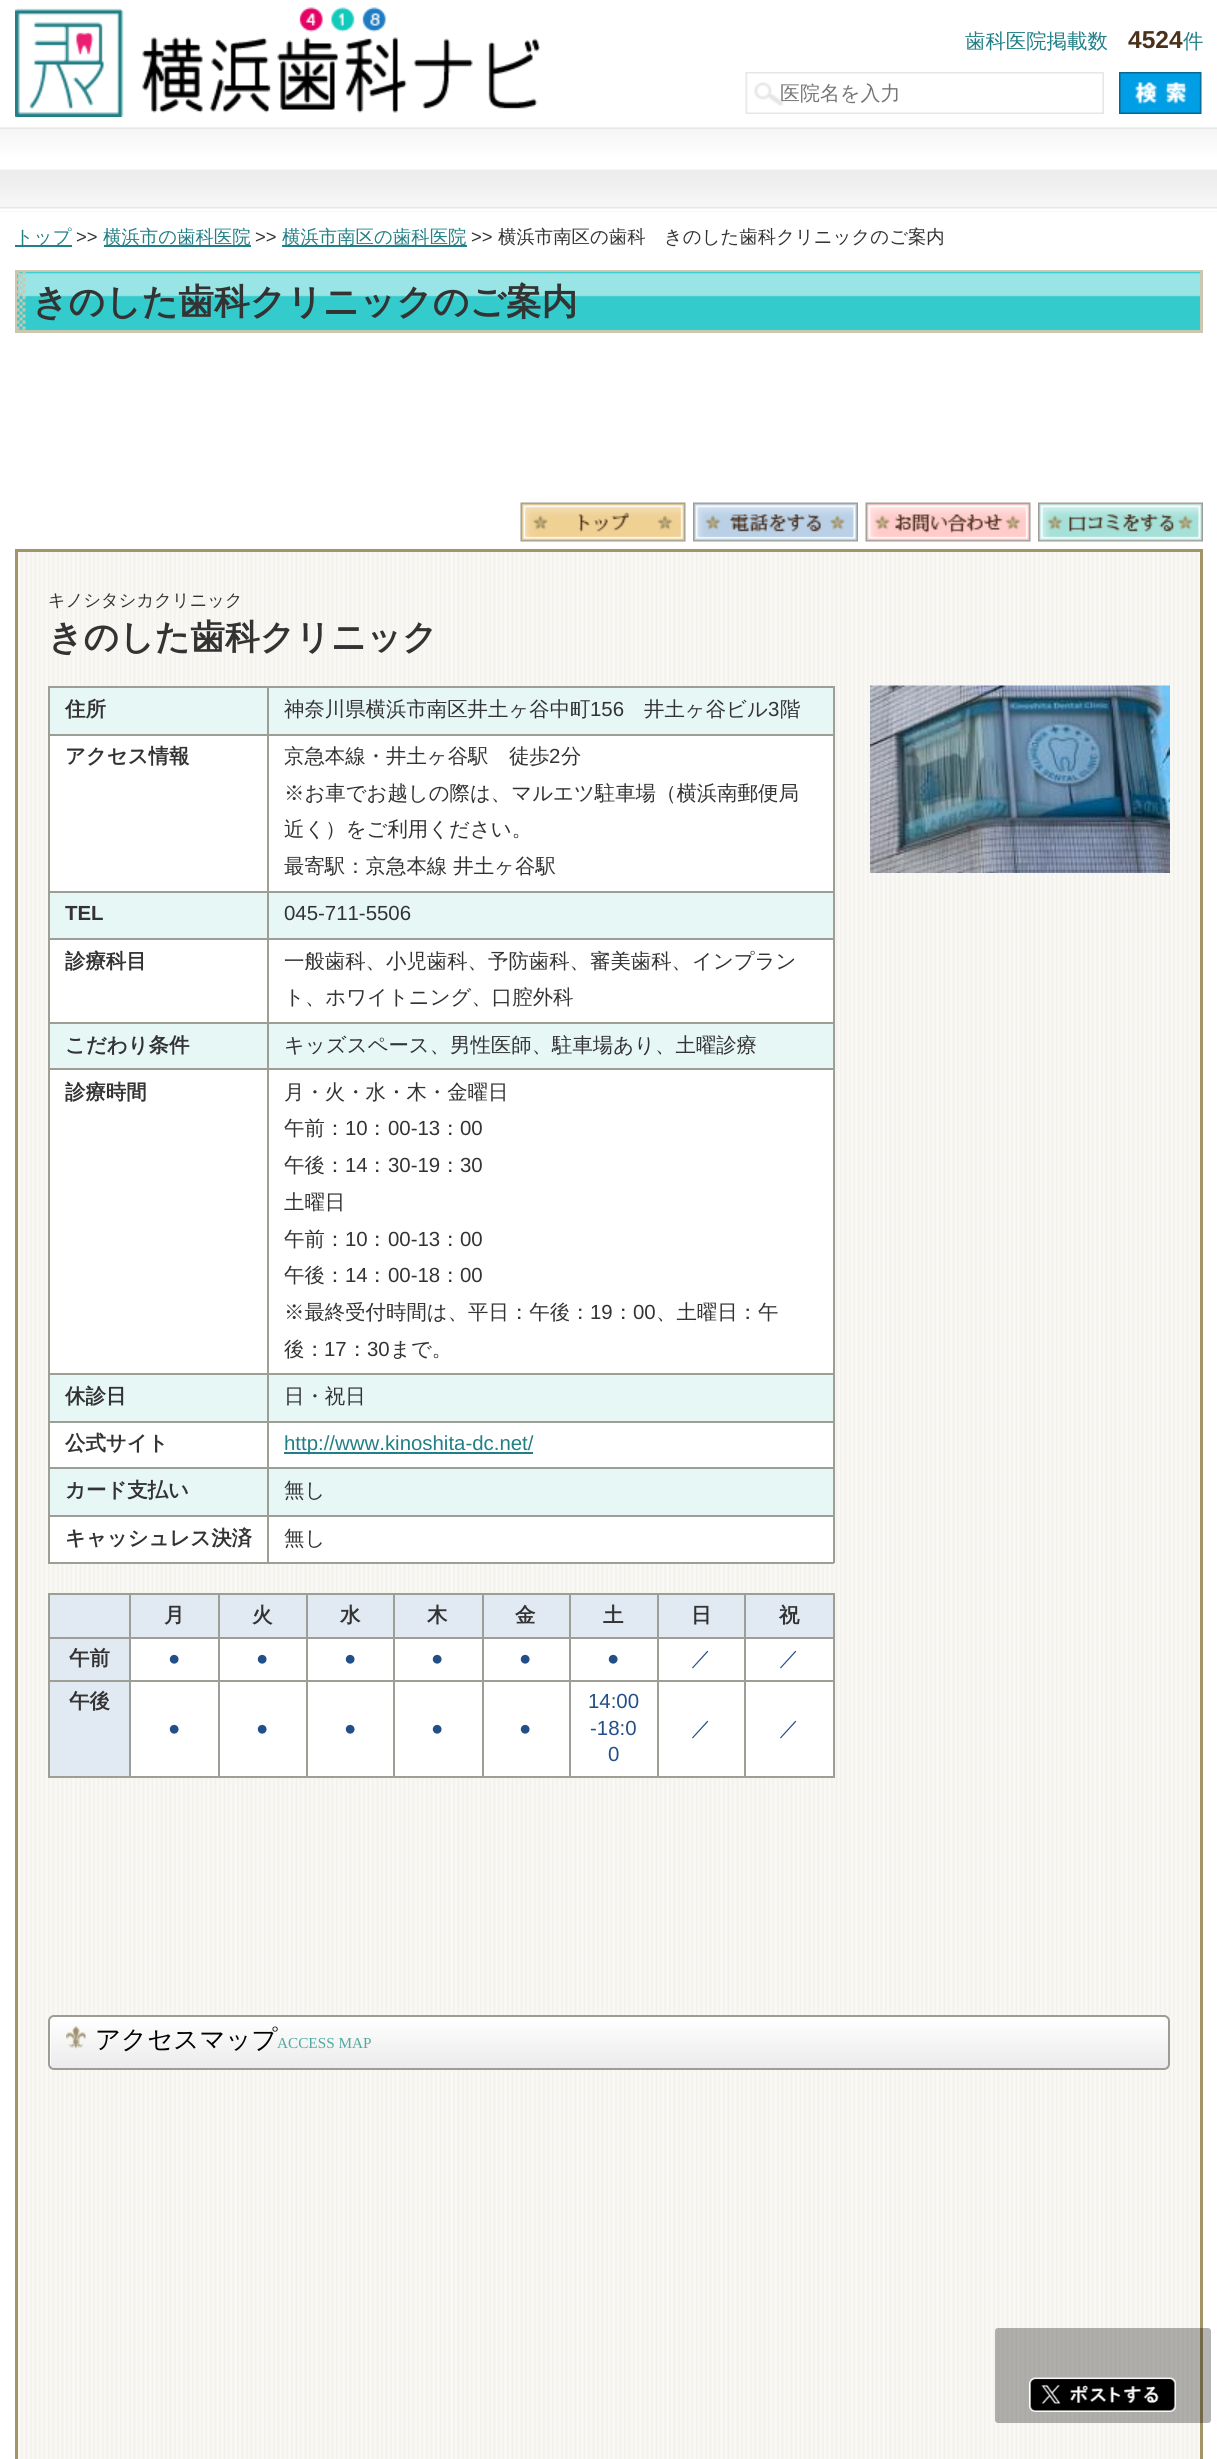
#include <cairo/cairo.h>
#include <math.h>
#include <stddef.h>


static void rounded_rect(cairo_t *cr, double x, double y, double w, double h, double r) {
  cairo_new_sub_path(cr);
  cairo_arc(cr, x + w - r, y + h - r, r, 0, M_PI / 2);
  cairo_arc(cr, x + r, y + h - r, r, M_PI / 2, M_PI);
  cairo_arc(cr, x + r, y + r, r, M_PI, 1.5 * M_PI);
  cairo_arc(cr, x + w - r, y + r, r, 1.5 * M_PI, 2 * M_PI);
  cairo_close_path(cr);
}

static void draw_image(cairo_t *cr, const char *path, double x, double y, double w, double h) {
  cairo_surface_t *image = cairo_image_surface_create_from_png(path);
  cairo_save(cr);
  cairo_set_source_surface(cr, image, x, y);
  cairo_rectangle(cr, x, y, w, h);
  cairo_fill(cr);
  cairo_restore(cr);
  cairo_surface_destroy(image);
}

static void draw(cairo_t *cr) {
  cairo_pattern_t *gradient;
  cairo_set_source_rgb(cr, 1, 1, 1);
  cairo_paint(cr);
  draw_image(cr, "images/1.png", 15, 7, 525, 110);
  draw_image(cr, "images/2.png", 745, 72, 359, 42);
  draw_image(cr, "images/3.png", 1119, 72, 83, 42);
  draw_image(cr, "images/4.png", 0, 127, 1217, 85);
  cairo_set_source_rgb(cr, 34 / 255.0, 127 / 255.0, 133 / 255.0);
  cairo_rectangle(cr, 15, 245, 57, 2);
  cairo_fill(cr);
  cairo_rectangle(cr, 104, 245, 147, 2);
  cairo_fill(cr);
  cairo_rectangle(cr, 282, 245, 185, 2);
  cairo_fill(cr);
  draw_image(cr, "images/5.png", 17, 272, 1183, 58);
  cairo_set_source_rgb(cr, 204 / 255.0, 199 / 255.0, 177 / 255.0);
  cairo_rectangle(cr, 15, 270, 1188, 2);
  cairo_fill(cr);
  cairo_rectangle(cr, 1200, 270, 3, 63);
  cairo_fill(cr);
  cairo_rectangle(cr, 15, 330, 1188, 3);
  cairo_fill(cr);
  cairo_rectangle(cr, 15, 270, 2, 63);
  cairo_fill(cr);
  draw_image(cr, "images/6.png", 520, 502, 166, 40);
  draw_image(cr, "images/7.png", 693, 502, 165, 40);
  draw_image(cr, "images/8.png", 865, 502, 166, 40);
  draw_image(cr, "images/9.png", 1038, 502, 165, 40);
  draw_image(cr, "images/10.png", 18, 552, 1182, 1907);
  cairo_rectangle(cr, 16.5, 550.5, 1185, 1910);
  cairo_set_source_rgb(cr, 164 / 255.0, 149 / 255.0, 104 / 255.0);
  cairo_set_line_width(cr, 3);
  cairo_stroke(cr);
  cairo_set_source_rgb(cr, 231 / 255.0, 247 / 255.0, 246 / 255.0);
  cairo_rectangle(cr, 50, 688, 217, 46);
  cairo_fill(cr);
  cairo_set_source_rgb(cr, 157 / 255.0, 158 / 255.0, 150 / 255.0);
  cairo_rectangle(cr, 267, 686, 567, 2);
  cairo_fill(cr);
  cairo_rectangle(cr, 267, 734, 567, 2);
  cairo_fill(cr);
  cairo_rectangle(cr, 267, 891, 567, 2);
  cairo_fill(cr);
  cairo_rectangle(cr, 267, 938, 567, 2);
  cairo_fill(cr);
  cairo_rectangle(cr, 267, 1022, 567, 2);
  cairo_fill(cr);
  cairo_rectangle(cr, 267, 1068, 567, 2);
  cairo_fill(cr);
  cairo_rectangle(cr, 267, 1373, 567, 2);
  cairo_fill(cr);
  cairo_rectangle(cr, 267, 1421, 567, 2);
  cairo_fill(cr);
  cairo_rectangle(cr, 267, 1467, 567, 2);
  cairo_fill(cr);
  cairo_rectangle(cr, 267, 1515, 567, 2);
  cairo_fill(cr);
  cairo_rectangle(cr, 833, 1515, 2, 48);
  cairo_fill(cr);
  cairo_rectangle(cr, 267, 1562, 567, 2);
  cairo_fill(cr);
  cairo_rectangle(cr, 267, 1515, 2, 48);
  cairo_fill(cr);
  cairo_rectangle(cr, 48, 1515, 221, 2);
  cairo_fill(cr);
  cairo_rectangle(cr, 267, 1467, 2, 50);
  cairo_fill(cr);
  cairo_rectangle(cr, 48, 1467, 221, 2);
  cairo_fill(cr);
  cairo_rectangle(cr, 267, 1421, 2, 48);
  cairo_fill(cr);
  cairo_rectangle(cr, 48, 1421, 221, 2);
  cairo_fill(cr);
  cairo_rectangle(cr, 267, 1373, 2, 49);
  cairo_fill(cr);
  cairo_rectangle(cr, 48, 1373, 221, 2);
  cairo_fill(cr);
  cairo_rectangle(cr, 267, 1068, 2, 306);
  cairo_fill(cr);
  cairo_rectangle(cr, 48, 1068, 221, 2);
  cairo_fill(cr);
  cairo_rectangle(cr, 267, 1022, 2, 48);
  cairo_fill(cr);
  cairo_rectangle(cr, 48, 1022, 221, 2);
  cairo_fill(cr);
  cairo_rectangle(cr, 267, 938, 2, 85);
  cairo_fill(cr);
  cairo_rectangle(cr, 48, 938, 221, 2);
  cairo_fill(cr);
  cairo_rectangle(cr, 267, 891, 2, 48);
  cairo_fill(cr);
  cairo_rectangle(cr, 48, 891, 221, 2);
  cairo_fill(cr);
  cairo_rectangle(cr, 267, 734, 2, 159);
  cairo_fill(cr);
  cairo_rectangle(cr, 48, 734, 221, 2);
  cairo_fill(cr);
  cairo_rectangle(cr, 267, 686, 2, 49);
  cairo_fill(cr);
  cairo_rectangle(cr, 48, 686, 221, 2);
  cairo_fill(cr);
  cairo_rectangle(cr, 48, 1562, 221, 2);
  cairo_fill(cr);
  cairo_rectangle(cr, 48, 1515, 2, 48);
  cairo_fill(cr);
  cairo_rectangle(cr, 48, 1467, 2, 50);
  cairo_fill(cr);
  cairo_rectangle(cr, 48, 1421, 2, 48);
  cairo_fill(cr);
  cairo_rectangle(cr, 48, 1373, 2, 49);
  cairo_fill(cr);
  cairo_rectangle(cr, 48, 1068, 2, 306);
  cairo_fill(cr);
  cairo_rectangle(cr, 48, 1022, 2, 48);
  cairo_fill(cr);
  cairo_rectangle(cr, 48, 938, 2, 85);
  cairo_fill(cr);
  cairo_rectangle(cr, 48, 891, 2, 48);
  cairo_fill(cr);
  cairo_rectangle(cr, 48, 734, 2, 159);
  cairo_fill(cr);
  cairo_rectangle(cr, 48, 686, 2, 49);
  cairo_fill(cr);
  cairo_set_source_rgb(cr, 231 / 255.0, 247 / 255.0, 246 / 255.0);
  cairo_rectangle(cr, 269, 688, 564, 46);
  cairo_fill(cr);
  cairo_set_source_rgb(cr, 157 / 255.0, 158 / 255.0, 150 / 255.0);
  cairo_rectangle(cr, 833, 1467, 2, 50);
  cairo_fill(cr);
  cairo_rectangle(cr, 833, 1421, 2, 48);
  cairo_fill(cr);
  cairo_rectangle(cr, 833, 1373, 2, 49);
  cairo_fill(cr);
  cairo_rectangle(cr, 833, 1068, 2, 306);
  cairo_fill(cr);
  cairo_rectangle(cr, 833, 1022, 2, 48);
  cairo_fill(cr);
  cairo_rectangle(cr, 833, 938, 2, 85);
  cairo_fill(cr);
  cairo_rectangle(cr, 833, 891, 2, 48);
  cairo_fill(cr);
  cairo_rectangle(cr, 833, 734, 2, 159);
  cairo_fill(cr);
  cairo_rectangle(cr, 833, 686, 2, 49);
  cairo_fill(cr);
  cairo_set_source_rgb(cr, 1, 1, 1);
  cairo_rectangle(cr, 50, 736, 217, 155);
  cairo_fill(cr);
  cairo_rectangle(cr, 269, 736, 564, 155);
  cairo_fill(cr);
  cairo_set_source_rgb(cr, 231 / 255.0, 247 / 255.0, 246 / 255.0);
  cairo_rectangle(cr, 50, 893, 217, 45);
  cairo_fill(cr);
  cairo_rectangle(cr, 269, 893, 564, 45);
  cairo_fill(cr);
  cairo_set_source_rgb(cr, 1, 1, 1);
  cairo_rectangle(cr, 50, 940, 217, 82);
  cairo_fill(cr);
  cairo_rectangle(cr, 269, 940, 564, 82);
  cairo_fill(cr);
  cairo_set_source_rgb(cr, 231 / 255.0, 247 / 255.0, 246 / 255.0);
  cairo_rectangle(cr, 50, 1024, 217, 44);
  cairo_fill(cr);
  cairo_rectangle(cr, 269, 1024, 564, 44);
  cairo_fill(cr);
  cairo_set_source_rgb(cr, 1, 1, 1);
  cairo_rectangle(cr, 50, 1070, 217, 303);
  cairo_fill(cr);
  cairo_rectangle(cr, 269, 1070, 564, 303);
  cairo_fill(cr);
  cairo_set_source_rgb(cr, 231 / 255.0, 247 / 255.0, 246 / 255.0);
  cairo_rectangle(cr, 50, 1375, 217, 46);
  cairo_fill(cr);
  cairo_rectangle(cr, 269, 1375, 564, 46);
  cairo_fill(cr);
  cairo_set_source_rgb(cr, 1, 1, 1);
  cairo_rectangle(cr, 50, 1423, 217, 44);
  cairo_fill(cr);
  cairo_rectangle(cr, 269, 1423, 564, 44);
  cairo_fill(cr);
  cairo_set_source_rgb(cr, 34 / 255.0, 127 / 255.0, 133 / 255.0);
  cairo_rectangle(cr, 284, 1452, 249, 2);
  cairo_fill(cr);
  cairo_set_source_rgb(cr, 231 / 255.0, 247 / 255.0, 246 / 255.0);
  cairo_rectangle(cr, 50, 1469, 217, 46);
  cairo_fill(cr);
  cairo_rectangle(cr, 269, 1469, 564, 46);
  cairo_fill(cr);
  cairo_set_source_rgb(cr, 1, 1, 1);
  cairo_rectangle(cr, 50, 1517, 217, 45);
  cairo_fill(cr);
  cairo_rectangle(cr, 269, 1517, 564, 45);
  cairo_fill(cr);
  draw_image(cr, "images/11.png", 870, 685, 300, 188);
  cairo_set_source_rgb(cr, 225 / 255.0, 234 / 255.0, 243 / 255.0);
  cairo_rectangle(cr, 50, 1595, 79, 42);
  cairo_fill(cr);
  cairo_set_source_rgb(cr, 157 / 255.0, 158 / 255.0, 150 / 255.0);
  cairo_rectangle(cr, 744, 1593, 90, 2);
  cairo_fill(cr);
  cairo_rectangle(cr, 744, 1637, 90, 2);
  cairo_fill(cr);
  cairo_rectangle(cr, 744, 1680, 90, 2);
  cairo_fill(cr);
  cairo_rectangle(cr, 833, 1680, 2, 98);
  cairo_fill(cr);
  cairo_rectangle(cr, 744, 1776, 90, 2);
  cairo_fill(cr);
  cairo_rectangle(cr, 744, 1680, 2, 98);
  cairo_fill(cr);
  cairo_rectangle(cr, 657, 1680, 89, 2);
  cairo_fill(cr);
  cairo_rectangle(cr, 744, 1637, 2, 45);
  cairo_fill(cr);
  cairo_rectangle(cr, 657, 1637, 89, 2);
  cairo_fill(cr);
  cairo_rectangle(cr, 744, 1593, 2, 45);
  cairo_fill(cr);
  cairo_rectangle(cr, 657, 1593, 89, 2);
  cairo_fill(cr);
  cairo_rectangle(cr, 657, 1776, 89, 2);
  cairo_fill(cr);
  cairo_rectangle(cr, 657, 1680, 2, 98);
  cairo_fill(cr);
  cairo_rectangle(cr, 569, 1680, 90, 2);
  cairo_fill(cr);
  cairo_rectangle(cr, 657, 1637, 2, 45);
  cairo_fill(cr);
  cairo_rectangle(cr, 569, 1637, 90, 2);
  cairo_fill(cr);
  cairo_rectangle(cr, 657, 1593, 2, 45);
  cairo_fill(cr);
  cairo_rectangle(cr, 569, 1593, 90, 2);
  cairo_fill(cr);
  cairo_rectangle(cr, 569, 1776, 90, 2);
  cairo_fill(cr);
  cairo_rectangle(cr, 569, 1680, 2, 98);
  cairo_fill(cr);
  cairo_rectangle(cr, 482, 1680, 88, 2);
  cairo_fill(cr);
  cairo_rectangle(cr, 569, 1637, 2, 45);
  cairo_fill(cr);
  cairo_rectangle(cr, 482, 1637, 88, 2);
  cairo_fill(cr);
  cairo_rectangle(cr, 569, 1593, 2, 45);
  cairo_fill(cr);
  cairo_rectangle(cr, 482, 1593, 88, 2);
  cairo_fill(cr);
  cairo_rectangle(cr, 482, 1776, 88, 2);
  cairo_fill(cr);
  cairo_rectangle(cr, 482, 1680, 2, 98);
  cairo_fill(cr);
  cairo_rectangle(cr, 393, 1680, 90, 2);
  cairo_fill(cr);
  cairo_rectangle(cr, 482, 1637, 2, 45);
  cairo_fill(cr);
  cairo_rectangle(cr, 393, 1637, 90, 2);
  cairo_fill(cr);
  cairo_rectangle(cr, 482, 1593, 2, 45);
  cairo_fill(cr);
  cairo_rectangle(cr, 393, 1593, 90, 2);
  cairo_fill(cr);
  cairo_rectangle(cr, 393, 1776, 90, 2);
  cairo_fill(cr);
  cairo_rectangle(cr, 393, 1680, 2, 98);
  cairo_fill(cr);
  cairo_rectangle(cr, 306, 1680, 89, 2);
  cairo_fill(cr);
  cairo_rectangle(cr, 393, 1637, 2, 45);
  cairo_fill(cr);
  cairo_rectangle(cr, 306, 1637, 89, 2);
  cairo_fill(cr);
  cairo_rectangle(cr, 393, 1593, 2, 45);
  cairo_fill(cr);
  cairo_rectangle(cr, 306, 1593, 89, 2);
  cairo_fill(cr);
  cairo_rectangle(cr, 306, 1776, 89, 2);
  cairo_fill(cr);
  cairo_rectangle(cr, 306, 1680, 2, 98);
  cairo_fill(cr);
  cairo_rectangle(cr, 218, 1680, 90, 2);
  cairo_fill(cr);
  cairo_rectangle(cr, 306, 1637, 2, 45);
  cairo_fill(cr);
  cairo_rectangle(cr, 218, 1637, 90, 2);
  cairo_fill(cr);
  cairo_rectangle(cr, 306, 1593, 2, 45);
  cairo_fill(cr);
  cairo_rectangle(cr, 218, 1593, 90, 2);
  cairo_fill(cr);
  cairo_rectangle(cr, 218, 1776, 90, 2);
  cairo_fill(cr);
  cairo_rectangle(cr, 218, 1680, 2, 98);
  cairo_fill(cr);
  cairo_rectangle(cr, 129, 1680, 90, 2);
  cairo_fill(cr);
  cairo_rectangle(cr, 218, 1637, 2, 45);
  cairo_fill(cr);
  cairo_rectangle(cr, 129, 1637, 90, 2);
  cairo_fill(cr);
  cairo_rectangle(cr, 218, 1593, 2, 45);
  cairo_fill(cr);
  cairo_rectangle(cr, 129, 1593, 90, 2);
  cairo_fill(cr);
  cairo_rectangle(cr, 129, 1776, 90, 2);
  cairo_fill(cr);
  cairo_rectangle(cr, 129, 1680, 2, 98);
  cairo_fill(cr);
  cairo_rectangle(cr, 48, 1680, 83, 2);
  cairo_fill(cr);
  cairo_rectangle(cr, 129, 1637, 2, 45);
  cairo_fill(cr);
  cairo_rectangle(cr, 48, 1637, 83, 2);
  cairo_fill(cr);
  cairo_rectangle(cr, 129, 1593, 2, 45);
  cairo_fill(cr);
  cairo_rectangle(cr, 48, 1593, 83, 2);
  cairo_fill(cr);
  cairo_rectangle(cr, 48, 1776, 83, 2);
  cairo_fill(cr);
  cairo_rectangle(cr, 48, 1680, 2, 98);
  cairo_fill(cr);
  cairo_rectangle(cr, 48, 1637, 2, 45);
  cairo_fill(cr);
  cairo_rectangle(cr, 48, 1593, 2, 45);
  cairo_fill(cr);
  cairo_set_source_rgb(cr, 225 / 255.0, 234 / 255.0, 243 / 255.0);
  cairo_rectangle(cr, 131, 1595, 87, 42);
  cairo_fill(cr);
  cairo_rectangle(cr, 220, 1595, 86, 42);
  cairo_fill(cr);
  cairo_rectangle(cr, 308, 1595, 85, 42);
  cairo_fill(cr);
  cairo_rectangle(cr, 395, 1595, 87, 42);
  cairo_fill(cr);
  cairo_rectangle(cr, 484, 1595, 85, 42);
  cairo_fill(cr);
  cairo_rectangle(cr, 571, 1595, 86, 42);
  cairo_fill(cr);
  cairo_rectangle(cr, 659, 1595, 85, 42);
  cairo_fill(cr);
  cairo_rectangle(cr, 746, 1595, 87, 42);
  cairo_fill(cr);
  cairo_set_source_rgb(cr, 157 / 255.0, 158 / 255.0, 150 / 255.0);
  cairo_rectangle(cr, 833, 1637, 2, 45);
  cairo_fill(cr);
  cairo_rectangle(cr, 833, 1593, 2, 45);
  cairo_fill(cr);
  cairo_set_source_rgb(cr, 225 / 255.0, 234 / 255.0, 243 / 255.0);
  cairo_rectangle(cr, 50, 1639, 79, 41);
  cairo_fill(cr);
  cairo_set_source_rgb(cr, 1, 1, 1);
  cairo_rectangle(cr, 131, 1639, 87, 41);
  cairo_fill(cr);
  cairo_rectangle(cr, 220, 1639, 86, 41);
  cairo_fill(cr);
  cairo_rectangle(cr, 308, 1639, 85, 41);
  cairo_fill(cr);
  cairo_rectangle(cr, 395, 1639, 87, 41);
  cairo_fill(cr);
  cairo_rectangle(cr, 484, 1639, 85, 41);
  cairo_fill(cr);
  cairo_rectangle(cr, 571, 1639, 86, 41);
  cairo_fill(cr);
  cairo_rectangle(cr, 659, 1639, 85, 41);
  cairo_fill(cr);
  cairo_rectangle(cr, 746, 1639, 87, 41);
  cairo_fill(cr);
  cairo_set_source_rgb(cr, 225 / 255.0, 234 / 255.0, 243 / 255.0);
  cairo_rectangle(cr, 50, 1682, 79, 94);
  cairo_fill(cr);
  cairo_set_source_rgb(cr, 1, 1, 1);
  cairo_rectangle(cr, 131, 1682, 87, 94);
  cairo_fill(cr);
  cairo_rectangle(cr, 220, 1682, 86, 94);
  cairo_fill(cr);
  cairo_rectangle(cr, 308, 1682, 85, 94);
  cairo_fill(cr);
  cairo_rectangle(cr, 395, 1682, 87, 94);
  cairo_fill(cr);
  cairo_rectangle(cr, 484, 1682, 85, 94);
  cairo_fill(cr);
  cairo_rectangle(cr, 571, 1682, 86, 94);
  cairo_fill(cr);
  cairo_rectangle(cr, 659, 1682, 85, 94);
  cairo_fill(cr);
  cairo_rectangle(cr, 746, 1682, 87, 94);
  cairo_fill(cr);
  cairo_save(cr);
  rounded_rect(cr, 48, 2015, 1122, 55, 6);
  cairo_clip(cr);
  gradient = cairo_pattern_create_linear(50, 2016, 50, 2069);
  cairo_pattern_add_color_stop_rgba(gradient, 0.05, 1, 1, 1, 1);
  cairo_pattern_add_color_stop_rgba(gradient, 1, 236 / 255.0, 234 / 255.0, 236 / 255.0, 1);
  cairo_set_source(cr, gradient);
  cairo_pattern_destroy(gradient);
  cairo_rectangle(cr, 48, 2016, 1122, 53);
  cairo_fill(cr);
  cairo_restore(cr);
  cairo_new_path(cr);
  cairo_move_to(cr, 56, 2018);
  cairo_line_to(cr, 1166, 2018);
  cairo_line_to(cr, 1169, 2019);
  cairo_curve_to(cr, 1168, 2017, 1166, 2016, 1164, 2016);
  cairo_line_to(cr, 55, 2016);
  cairo_curve_to(cr, 52, 2016, 50, 2018, 50, 2021);
  cairo_line_to(cr, 50, 2064);
  cairo_curve_to(cr, 50, 2065, 50, 2066, 51, 2067);
  cairo_line_to(cr, 51, 2029);
  cairo_curve_to(cr, 51, 2025, 50, 2018, 56, 2018);
  cairo_close_path(cr);
  cairo_fill(cr);
  rounded_rect(cr, 49, 2016, 1120, 53, 5);
  cairo_set_source_rgb(cr, 156 / 255.0, 158 / 255.0, 149 / 255.0);
  cairo_set_line_width(cr, 2);
  cairo_stroke(cr);
  draw_image(cr, "images/12.png", 66, 2026, 20, 23);
  cairo_set_source_rgba(cr, 0, 0, 0, 0.3);
  rounded_rect(cr, 995, 2328, 216, 95, 3);
  cairo_fill(cr);
  draw_image(cr, "images/13.png", 1029, 2377, 147, 35);
  cairo_select_font_face(cr, "WenQuanYi Zen Hei Medium", CAIRO_FONT_SLANT_NORMAL, CAIRO_FONT_WEIGHT_NORMAL);
  cairo_set_font_size(cr, 20.4);
  cairo_set_source_rgb(cr, 34 / 255.0, 127 / 255.0, 133 / 255.0);
  cairo_move_to(cr, 965, 48);
  cairo_show_text(cr, "歯科医院掲載数");
  cairo_select_font_face(cr, "Liberation Sans", CAIRO_FONT_SLANT_NORMAL, CAIRO_FONT_WEIGHT_BOLD);
  cairo_set_font_size(cr, 24.5);
  cairo_set_source_rgb(cr, 73 / 255.0, 49 / 255.0, 28 / 255.0);
  cairo_move_to(cr, 1128, 48);
  cairo_show_text(cr, "4524");
  cairo_select_font_face(cr, "WenQuanYi Zen Hei Medium", CAIRO_FONT_SLANT_NORMAL, CAIRO_FONT_WEIGHT_NORMAL);
  cairo_set_font_size(cr, 20.4);
  cairo_set_source_rgb(cr, 34 / 255.0, 127 / 255.0, 133 / 255.0);
  cairo_move_to(cr, 1183, 48);
  cairo_show_text(cr, "件");
  cairo_set_font_size(cr, 20);
  cairo_set_source_rgb(cr, 117 / 255.0, 117 / 255.0, 117 / 255.0);
  cairo_move_to(cr, 780, 100);
  cairo_show_text(cr, "医院名を入力");
  cairo_set_font_size(cr, 18.4);
  cairo_set_source_rgb(cr, 34 / 255.0, 127 / 255.0, 133 / 255.0);
  cairo_move_to(cr, 15, 243);
  cairo_show_text(cr, "トップ");
  cairo_select_font_face(cr, "Liberation Sans", CAIRO_FONT_SLANT_NORMAL, CAIRO_FONT_WEIGHT_NORMAL);
  cairo_set_source_rgb(cr, 51 / 255.0, 51 / 255.0, 51 / 255.0);
  cairo_move_to(cr, 76, 243);
  cairo_show_text(cr, ">>");
  cairo_select_font_face(cr, "WenQuanYi Zen Hei Medium", CAIRO_FONT_SLANT_NORMAL, CAIRO_FONT_WEIGHT_NORMAL);
  cairo_set_source_rgb(cr, 34 / 255.0, 127 / 255.0, 133 / 255.0);
  cairo_move_to(cr, 103, 243);
  cairo_show_text(cr, "横浜市の歯科医院");
  cairo_select_font_face(cr, "Liberation Sans", CAIRO_FONT_SLANT_NORMAL, CAIRO_FONT_WEIGHT_NORMAL);
  cairo_set_source_rgb(cr, 51 / 255.0, 51 / 255.0, 51 / 255.0);
  cairo_move_to(cr, 255, 243);
  cairo_show_text(cr, ">>");
  cairo_select_font_face(cr, "WenQuanYi Zen Hei Medium", CAIRO_FONT_SLANT_NORMAL, CAIRO_FONT_WEIGHT_NORMAL);
  cairo_set_source_rgb(cr, 34 / 255.0, 127 / 255.0, 133 / 255.0);
  cairo_move_to(cr, 282, 243);
  cairo_show_text(cr, "横浜市南区の歯科医院");
  cairo_select_font_face(cr, "Liberation Sans", CAIRO_FONT_SLANT_NORMAL, CAIRO_FONT_WEIGHT_NORMAL);
  cairo_set_source_rgb(cr, 51 / 255.0, 51 / 255.0, 51 / 255.0);
  cairo_move_to(cr, 471, 243);
  cairo_show_text(cr, ">>");
  cairo_select_font_face(cr, "WenQuanYi Zen Hei Medium", CAIRO_FONT_SLANT_NORMAL, CAIRO_FONT_WEIGHT_NORMAL);
  cairo_move_to(cr, 498, 243);
  cairo_show_text(cr, "横浜市南区の歯科　きのした歯科クリニックのご案内");
  cairo_select_font_face(cr, "WenQuanYi Zen Hei", CAIRO_FONT_SLANT_NORMAL, CAIRO_FONT_WEIGHT_BOLD);
  cairo_set_font_size(cr, 35.75);
  cairo_move_to(cr, 32, 314);
  cairo_show_text(cr, "きのした歯科クリニックのご案内");
  cairo_select_font_face(cr, "WenQuanYi Zen Hei Medium", CAIRO_FONT_SLANT_NORMAL, CAIRO_FONT_WEIGHT_NORMAL);
  cairo_set_font_size(cr, 17.3);
  cairo_move_to(cr, 48, 606);
  cairo_show_text(cr, "キノシタシカクリニック");
  cairo_select_font_face(cr, "WenQuanYi Zen Hei", CAIRO_FONT_SLANT_NORMAL, CAIRO_FONT_WEIGHT_BOLD);
  cairo_set_font_size(cr, 34.75);
  cairo_move_to(cr, 48, 649);
  cairo_show_text(cr, "きのした歯科クリニック");
  cairo_set_font_size(cr, 20.4);
  cairo_move_to(cr, 65, 716);
  cairo_show_text(cr, "住所");
  cairo_select_font_face(cr, "WenQuanYi Zen Hei Medium", CAIRO_FONT_SLANT_NORMAL, CAIRO_FONT_WEIGHT_NORMAL);
  cairo_move_to(cr, 284, 716);
  cairo_show_text(cr, "神奈川県横浜市南区井土ヶ谷中町");
  cairo_select_font_face(cr, "Liberation Sans", CAIRO_FONT_SLANT_NORMAL, CAIRO_FONT_WEIGHT_NORMAL);
  cairo_move_to(cr, 590, 716);
  cairo_show_text(cr, "156");
  cairo_select_font_face(cr, "WenQuanYi Zen Hei Medium", CAIRO_FONT_SLANT_NORMAL, CAIRO_FONT_WEIGHT_NORMAL);
  cairo_move_to(cr, 644, 716);
  cairo_show_text(cr, "井土ヶ谷ビル");
  cairo_select_font_face(cr, "Liberation Sans", CAIRO_FONT_SLANT_NORMAL, CAIRO_FONT_WEIGHT_NORMAL);
  cairo_move_to(cr, 768, 716);
  cairo_show_text(cr, "3");
  cairo_select_font_face(cr, "WenQuanYi Zen Hei Medium", CAIRO_FONT_SLANT_NORMAL, CAIRO_FONT_WEIGHT_NORMAL);
  cairo_move_to(cr, 780, 716);
  cairo_show_text(cr, "階");
  cairo_select_font_face(cr, "WenQuanYi Zen Hei", CAIRO_FONT_SLANT_NORMAL, CAIRO_FONT_WEIGHT_BOLD);
  cairo_move_to(cr, 65, 763);
  cairo_show_text(cr, "アクセス情報");
  cairo_select_font_face(cr, "WenQuanYi Zen Hei Medium", CAIRO_FONT_SLANT_NORMAL, CAIRO_FONT_WEIGHT_NORMAL);
  cairo_move_to(cr, 284, 763);
  cairo_show_text(cr, "京急本線・井土ヶ谷駅　徒歩");
  cairo_select_font_face(cr, "Liberation Sans", CAIRO_FONT_SLANT_NORMAL, CAIRO_FONT_WEIGHT_NORMAL);
  cairo_move_to(cr, 549, 763);
  cairo_show_text(cr, "2");
  cairo_select_font_face(cr, "WenQuanYi Zen Hei Medium", CAIRO_FONT_SLANT_NORMAL, CAIRO_FONT_WEIGHT_NORMAL);
  cairo_move_to(cr, 561, 763);
  cairo_show_text(cr, "分");
  cairo_move_to(cr, 284, 800);
  cairo_show_text(cr, "※お車でお越しの際は、マルエツ駐車場（横浜南郵便局");
  cairo_move_to(cr, 284, 836);
  cairo_show_text(cr, "近く）をご利用ください。");
  cairo_move_to(cr, 284, 873);
  cairo_show_text(cr, "最寄駅：京急本線 井土ヶ谷駅");
  cairo_select_font_face(cr, "Liberation Sans", CAIRO_FONT_SLANT_NORMAL, CAIRO_FONT_WEIGHT_BOLD);
  cairo_move_to(cr, 65, 920);
  cairo_show_text(cr, "TEL");
  cairo_select_font_face(cr, "Liberation Sans", CAIRO_FONT_SLANT_NORMAL, CAIRO_FONT_WEIGHT_NORMAL);
  cairo_move_to(cr, 284, 920);
  cairo_show_text(cr, "045-711-5506");
  cairo_select_font_face(cr, "WenQuanYi Zen Hei", CAIRO_FONT_SLANT_NORMAL, CAIRO_FONT_WEIGHT_BOLD);
  cairo_move_to(cr, 65, 968);
  cairo_show_text(cr, "診療科目");
  cairo_select_font_face(cr, "WenQuanYi Zen Hei Medium", CAIRO_FONT_SLANT_NORMAL, CAIRO_FONT_WEIGHT_NORMAL);
  cairo_move_to(cr, 284, 968);
  cairo_show_text(cr, "一般歯科、小児歯科、予防歯科、審美歯科、インプラン");
  cairo_move_to(cr, 284, 1004);
  cairo_show_text(cr, "ト、ホワイトニング、口腔外科");
  cairo_select_font_face(cr, "WenQuanYi Zen Hei", CAIRO_FONT_SLANT_NORMAL, CAIRO_FONT_WEIGHT_BOLD);
  cairo_move_to(cr, 65, 1052);
  cairo_show_text(cr, "こだわり条件");
  cairo_select_font_face(cr, "WenQuanYi Zen Hei Medium", CAIRO_FONT_SLANT_NORMAL, CAIRO_FONT_WEIGHT_NORMAL);
  cairo_move_to(cr, 284, 1052);
  cairo_show_text(cr, "キッズスペース、男性医師、駐車場あり、土曜診療");
  cairo_select_font_face(cr, "WenQuanYi Zen Hei", CAIRO_FONT_SLANT_NORMAL, CAIRO_FONT_WEIGHT_BOLD);
  cairo_move_to(cr, 65, 1099);
  cairo_show_text(cr, "診療時間");
  cairo_select_font_face(cr, "WenQuanYi Zen Hei Medium", CAIRO_FONT_SLANT_NORMAL, CAIRO_FONT_WEIGHT_NORMAL);
  cairo_move_to(cr, 284, 1099);
  cairo_show_text(cr, "月・火・水・木・金曜日");
  cairo_move_to(cr, 284, 1135);
  cairo_show_text(cr, "午前：");
  cairo_select_font_face(cr, "Liberation Sans", CAIRO_FONT_SLANT_NORMAL, CAIRO_FONT_WEIGHT_NORMAL);
  cairo_move_to(cr, 345, 1135);
  cairo_show_text(cr, "10");
  cairo_select_font_face(cr, "WenQuanYi Zen Hei Medium", CAIRO_FONT_SLANT_NORMAL, CAIRO_FONT_WEIGHT_NORMAL);
  cairo_move_to(cr, 367, 1135);
  cairo_show_text(cr, "：");
  cairo_select_font_face(cr, "Liberation Sans", CAIRO_FONT_SLANT_NORMAL, CAIRO_FONT_WEIGHT_NORMAL);
  cairo_move_to(cr, 388, 1135);
  cairo_show_text(cr, "00-13");
  cairo_select_font_face(cr, "WenQuanYi Zen Hei Medium", CAIRO_FONT_SLANT_NORMAL, CAIRO_FONT_WEIGHT_NORMAL);
  cairo_move_to(cr, 440, 1135);
  cairo_show_text(cr, "：");
  cairo_select_font_face(cr, "Liberation Sans", CAIRO_FONT_SLANT_NORMAL, CAIRO_FONT_WEIGHT_NORMAL);
  cairo_move_to(cr, 460, 1135);
  cairo_show_text(cr, "00");
  cairo_select_font_face(cr, "WenQuanYi Zen Hei Medium", CAIRO_FONT_SLANT_NORMAL, CAIRO_FONT_WEIGHT_NORMAL);
  cairo_move_to(cr, 284, 1172);
  cairo_show_text(cr, "午後：");
  cairo_select_font_face(cr, "Liberation Sans", CAIRO_FONT_SLANT_NORMAL, CAIRO_FONT_WEIGHT_NORMAL);
  cairo_move_to(cr, 345, 1172);
  cairo_show_text(cr, "14");
  cairo_select_font_face(cr, "WenQuanYi Zen Hei Medium", CAIRO_FONT_SLANT_NORMAL, CAIRO_FONT_WEIGHT_NORMAL);
  cairo_move_to(cr, 367, 1172);
  cairo_show_text(cr, "：");
  cairo_select_font_face(cr, "Liberation Sans", CAIRO_FONT_SLANT_NORMAL, CAIRO_FONT_WEIGHT_NORMAL);
  cairo_move_to(cr, 388, 1172);
  cairo_show_text(cr, "30-19");
  cairo_select_font_face(cr, "WenQuanYi Zen Hei Medium", CAIRO_FONT_SLANT_NORMAL, CAIRO_FONT_WEIGHT_NORMAL);
  cairo_move_to(cr, 440, 1172);
  cairo_show_text(cr, "：");
  cairo_select_font_face(cr, "Liberation Sans", CAIRO_FONT_SLANT_NORMAL, CAIRO_FONT_WEIGHT_NORMAL);
  cairo_move_to(cr, 460, 1172);
  cairo_show_text(cr, "30");
  cairo_select_font_face(cr, "WenQuanYi Zen Hei Medium", CAIRO_FONT_SLANT_NORMAL, CAIRO_FONT_WEIGHT_NORMAL);
  cairo_move_to(cr, 284, 1209);
  cairo_show_text(cr, "土曜日");
  cairo_move_to(cr, 284, 1246);
  cairo_show_text(cr, "午前：");
  cairo_select_font_face(cr, "Liberation Sans", CAIRO_FONT_SLANT_NORMAL, CAIRO_FONT_WEIGHT_NORMAL);
  cairo_move_to(cr, 345, 1246);
  cairo_show_text(cr, "10");
  cairo_select_font_face(cr, "WenQuanYi Zen Hei Medium", CAIRO_FONT_SLANT_NORMAL, CAIRO_FONT_WEIGHT_NORMAL);
  cairo_move_to(cr, 367, 1246);
  cairo_show_text(cr, "：");
  cairo_select_font_face(cr, "Liberation Sans", CAIRO_FONT_SLANT_NORMAL, CAIRO_FONT_WEIGHT_NORMAL);
  cairo_move_to(cr, 388, 1246);
  cairo_show_text(cr, "00-13");
  cairo_select_font_face(cr, "WenQuanYi Zen Hei Medium", CAIRO_FONT_SLANT_NORMAL, CAIRO_FONT_WEIGHT_NORMAL);
  cairo_move_to(cr, 440, 1246);
  cairo_show_text(cr, "：");
  cairo_select_font_face(cr, "Liberation Sans", CAIRO_FONT_SLANT_NORMAL, CAIRO_FONT_WEIGHT_NORMAL);
  cairo_move_to(cr, 460, 1246);
  cairo_show_text(cr, "00");
  cairo_select_font_face(cr, "WenQuanYi Zen Hei Medium", CAIRO_FONT_SLANT_NORMAL, CAIRO_FONT_WEIGHT_NORMAL);
  cairo_move_to(cr, 284, 1282);
  cairo_show_text(cr, "午後：");
  cairo_select_font_face(cr, "Liberation Sans", CAIRO_FONT_SLANT_NORMAL, CAIRO_FONT_WEIGHT_NORMAL);
  cairo_move_to(cr, 345, 1282);
  cairo_show_text(cr, "14");
  cairo_select_font_face(cr, "WenQuanYi Zen Hei Medium", CAIRO_FONT_SLANT_NORMAL, CAIRO_FONT_WEIGHT_NORMAL);
  cairo_move_to(cr, 367, 1282);
  cairo_show_text(cr, "：");
  cairo_select_font_face(cr, "Liberation Sans", CAIRO_FONT_SLANT_NORMAL, CAIRO_FONT_WEIGHT_NORMAL);
  cairo_move_to(cr, 388, 1282);
  cairo_show_text(cr, "00-18");
  cairo_select_font_face(cr, "WenQuanYi Zen Hei Medium", CAIRO_FONT_SLANT_NORMAL, CAIRO_FONT_WEIGHT_NORMAL);
  cairo_move_to(cr, 440, 1282);
  cairo_show_text(cr, "：");
  cairo_select_font_face(cr, "Liberation Sans", CAIRO_FONT_SLANT_NORMAL, CAIRO_FONT_WEIGHT_NORMAL);
  cairo_move_to(cr, 460, 1282);
  cairo_show_text(cr, "00");
  cairo_select_font_face(cr, "WenQuanYi Zen Hei Medium", CAIRO_FONT_SLANT_NORMAL, CAIRO_FONT_WEIGHT_NORMAL);
  cairo_move_to(cr, 284, 1319);
  cairo_show_text(cr, "※最終受付時間は、平日：午後：");
  cairo_select_font_face(cr, "Liberation Sans", CAIRO_FONT_SLANT_NORMAL, CAIRO_FONT_WEIGHT_NORMAL);
  cairo_move_to(cr, 590, 1319);
  cairo_show_text(cr, "19");
  cairo_select_font_face(cr, "WenQuanYi Zen Hei Medium", CAIRO_FONT_SLANT_NORMAL, CAIRO_FONT_WEIGHT_NORMAL);
  cairo_move_to(cr, 613, 1319);
  cairo_show_text(cr, "：");
  cairo_select_font_face(cr, "Liberation Sans", CAIRO_FONT_SLANT_NORMAL, CAIRO_FONT_WEIGHT_NORMAL);
  cairo_move_to(cr, 633, 1319);
  cairo_show_text(cr, "00");
  cairo_select_font_face(cr, "WenQuanYi Zen Hei Medium", CAIRO_FONT_SLANT_NORMAL, CAIRO_FONT_WEIGHT_NORMAL);
  cairo_move_to(cr, 656, 1319);
  cairo_show_text(cr, "、土曜日：午");
  cairo_move_to(cr, 284, 1356);
  cairo_show_text(cr, "後：");
  cairo_select_font_face(cr, "Liberation Sans", CAIRO_FONT_SLANT_NORMAL, CAIRO_FONT_WEIGHT_NORMAL);
  cairo_move_to(cr, 324, 1356);
  cairo_show_text(cr, "17");
  cairo_select_font_face(cr, "WenQuanYi Zen Hei Medium", CAIRO_FONT_SLANT_NORMAL, CAIRO_FONT_WEIGHT_NORMAL);
  cairo_move_to(cr, 347, 1356);
  cairo_show_text(cr, "：");
  cairo_select_font_face(cr, "Liberation Sans", CAIRO_FONT_SLANT_NORMAL, CAIRO_FONT_WEIGHT_NORMAL);
  cairo_move_to(cr, 367, 1356);
  cairo_show_text(cr, "30");
  cairo_select_font_face(cr, "WenQuanYi Zen Hei Medium", CAIRO_FONT_SLANT_NORMAL, CAIRO_FONT_WEIGHT_NORMAL);
  cairo_move_to(cr, 390, 1356);
  cairo_show_text(cr, "まで。");
  cairo_select_font_face(cr, "WenQuanYi Zen Hei", CAIRO_FONT_SLANT_NORMAL, CAIRO_FONT_WEIGHT_BOLD);
  cairo_move_to(cr, 65, 1403);
  cairo_show_text(cr, "休診日");
  cairo_select_font_face(cr, "WenQuanYi Zen Hei Medium", CAIRO_FONT_SLANT_NORMAL, CAIRO_FONT_WEIGHT_NORMAL);
  cairo_move_to(cr, 284, 1403);
  cairo_show_text(cr, "日・祝日");
  cairo_select_font_face(cr, "WenQuanYi Zen Hei", CAIRO_FONT_SLANT_NORMAL, CAIRO_FONT_WEIGHT_BOLD);
  cairo_move_to(cr, 65, 1450);
  cairo_show_text(cr, "公式サイト");
  cairo_select_font_face(cr, "Liberation Sans", CAIRO_FONT_SLANT_NORMAL, CAIRO_FONT_WEIGHT_NORMAL);
  cairo_set_source_rgb(cr, 34 / 255.0, 127 / 255.0, 133 / 255.0);
  cairo_move_to(cr, 284, 1450);
  cairo_show_text(cr, "http://www.kinoshita-dc.net/");
  cairo_select_font_face(cr, "WenQuanYi Zen Hei", CAIRO_FONT_SLANT_NORMAL, CAIRO_FONT_WEIGHT_BOLD);
  cairo_set_source_rgb(cr, 51 / 255.0, 51 / 255.0, 51 / 255.0);
  cairo_move_to(cr, 65, 1497);
  cairo_show_text(cr, "カード支払い");
  cairo_select_font_face(cr, "WenQuanYi Zen Hei Medium", CAIRO_FONT_SLANT_NORMAL, CAIRO_FONT_WEIGHT_NORMAL);
  cairo_move_to(cr, 284, 1497);
  cairo_show_text(cr, "無し");
  cairo_select_font_face(cr, "WenQuanYi Zen Hei", CAIRO_FONT_SLANT_NORMAL, CAIRO_FONT_WEIGHT_BOLD);
  cairo_move_to(cr, 65, 1545);
  cairo_show_text(cr, "キャッシュレス決済");
  cairo_select_font_face(cr, "WenQuanYi Zen Hei Medium", CAIRO_FONT_SLANT_NORMAL, CAIRO_FONT_WEIGHT_NORMAL);
  cairo_move_to(cr, 284, 1545);
  cairo_show_text(cr, "無し");
  cairo_select_font_face(cr, "WenQuanYi Zen Hei", CAIRO_FONT_SLANT_NORMAL, CAIRO_FONT_WEIGHT_BOLD);
  cairo_move_to(cr, 164, 1622);
  cairo_show_text(cr, "月");
  cairo_move_to(cr, 252, 1622);
  cairo_show_text(cr, "火");
  cairo_move_to(cr, 340, 1622);
  cairo_show_text(cr, "水");
  cairo_move_to(cr, 427, 1622);
  cairo_show_text(cr, "木");
  cairo_move_to(cr, 515, 1622);
  cairo_show_text(cr, "金");
  cairo_move_to(cr, 603, 1622);
  cairo_show_text(cr, "土");
  cairo_move_to(cr, 691, 1622);
  cairo_show_text(cr, "日");
  cairo_move_to(cr, 779, 1622);
  cairo_show_text(cr, "祝");
  cairo_move_to(cr, 69, 1665);
  cairo_show_text(cr, "午前");
  cairo_select_font_face(cr, "Liberation Sans", CAIRO_FONT_SLANT_NORMAL, CAIRO_FONT_WEIGHT_NORMAL);
  cairo_set_source_rgb(cr, 34 / 255.0, 79 / 255.0, 136 / 255.0);
  cairo_move_to(cr, 168, 1665);
  cairo_show_text(cr, "●");
  cairo_move_to(cr, 256, 1665);
  cairo_show_text(cr, "●");
  cairo_move_to(cr, 344, 1665);
  cairo_show_text(cr, "●");
  cairo_move_to(cr, 431, 1665);
  cairo_show_text(cr, "●");
  cairo_move_to(cr, 519, 1665);
  cairo_show_text(cr, "●");
  cairo_move_to(cr, 607, 1665);
  cairo_show_text(cr, "●");
  cairo_select_font_face(cr, "WenQuanYi Zen Hei Medium", CAIRO_FONT_SLANT_NORMAL, CAIRO_FONT_WEIGHT_NORMAL);
  cairo_move_to(cr, 691, 1665);
  cairo_show_text(cr, "／");
  cairo_move_to(cr, 779, 1665);
  cairo_show_text(cr, "／");
  cairo_select_font_face(cr, "WenQuanYi Zen Hei", CAIRO_FONT_SLANT_NORMAL, CAIRO_FONT_WEIGHT_BOLD);
  cairo_set_source_rgb(cr, 51 / 255.0, 51 / 255.0, 51 / 255.0);
  cairo_move_to(cr, 69, 1708);
  cairo_show_text(cr, "午後");
  cairo_select_font_face(cr, "Liberation Sans", CAIRO_FONT_SLANT_NORMAL, CAIRO_FONT_WEIGHT_NORMAL);
  cairo_set_source_rgb(cr, 34 / 255.0, 79 / 255.0, 136 / 255.0);
  cairo_move_to(cr, 168, 1735);
  cairo_show_text(cr, "●");
  cairo_move_to(cr, 256, 1735);
  cairo_show_text(cr, "●");
  cairo_move_to(cr, 344, 1735);
  cairo_show_text(cr, "●");
  cairo_move_to(cr, 431, 1735);
  cairo_show_text(cr, "●");
  cairo_move_to(cr, 519, 1735);
  cairo_show_text(cr, "●");
  cairo_move_to(cr, 588, 1708);
  cairo_show_text(cr, "14:00");
  cairo_move_to(cr, 590, 1735);
  cairo_show_text(cr, "-18:0");
  cairo_move_to(cr, 608, 1761);
  cairo_show_text(cr, "0");
  cairo_select_font_face(cr, "WenQuanYi Zen Hei Medium", CAIRO_FONT_SLANT_NORMAL, CAIRO_FONT_WEIGHT_NORMAL);
  cairo_move_to(cr, 691, 1735);
  cairo_show_text(cr, "／");
  cairo_move_to(cr, 779, 1735);
  cairo_show_text(cr, "／");
  cairo_set_font_size(cr, 25.5);
  cairo_set_source_rgb(cr, 0, 0, 0);
  cairo_move_to(cr, 95, 2048);
  cairo_show_text(cr, "アクセスマップ");
  cairo_select_font_face(cr, "Liberation Serif", CAIRO_FONT_SLANT_NORMAL, CAIRO_FONT_WEIGHT_NORMAL);
  cairo_set_font_size(cr, 15.25);
  cairo_set_source_rgb(cr, 79 / 255.0, 170 / 255.0, 161 / 255.0);
  cairo_move_to(cr, 277, 2048);
  cairo_show_text(cr, "ACCESS MAP");
}

int main(void) {
  cairo_surface_t *surface = cairo_image_surface_create(CAIRO_FORMAT_RGB24, 1217, 2459);
  cairo_t *cr = cairo_create(surface);
  cairo_font_options_t *options = cairo_font_options_create();
  cairo_font_options_set_hint_metrics(options, CAIRO_HINT_METRICS_OFF);
  cairo_font_options_set_hint_style(options, CAIRO_HINT_STYLE_NONE);
  cairo_set_font_options(cr, options);
  cairo_set_miter_limit(cr, 4);
  draw(cr);
  cairo_surface_write_to_png(surface, "out.png");
  cairo_font_options_destroy(options);
  cairo_destroy(cr);
  cairo_surface_destroy(surface);
  return 0;
}
